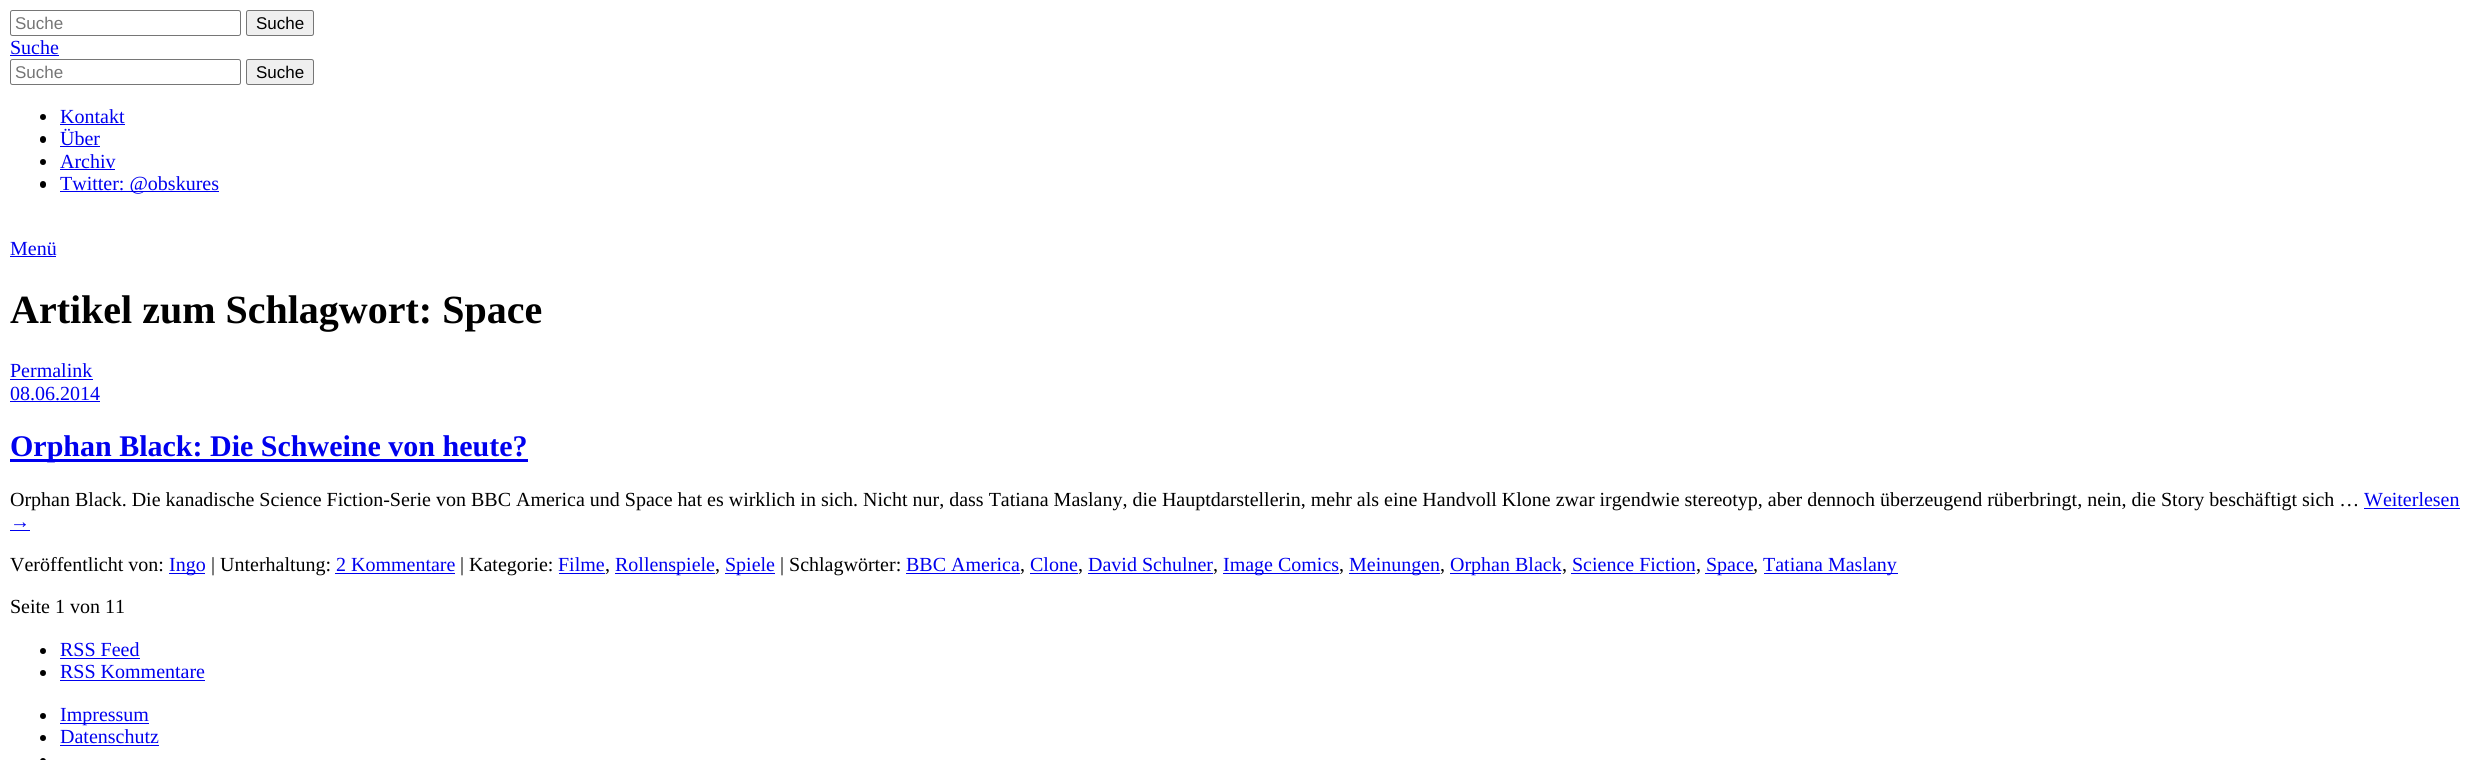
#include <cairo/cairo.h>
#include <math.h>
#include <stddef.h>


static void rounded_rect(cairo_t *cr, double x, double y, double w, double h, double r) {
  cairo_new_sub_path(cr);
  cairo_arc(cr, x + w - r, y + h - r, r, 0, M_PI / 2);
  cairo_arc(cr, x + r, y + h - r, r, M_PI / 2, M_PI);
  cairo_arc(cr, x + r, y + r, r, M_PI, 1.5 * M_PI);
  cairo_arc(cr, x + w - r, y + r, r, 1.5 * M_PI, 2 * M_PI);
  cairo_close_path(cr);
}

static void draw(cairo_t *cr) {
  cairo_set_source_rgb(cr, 1, 1, 1);
  cairo_paint(cr);
  rounded_rect(cr, 10.5, 10.5, 230, 25, 2);
  cairo_set_source_rgb(cr, 118 / 255.0, 118 / 255.0, 118 / 255.0);
  cairo_set_line_width(cr, 1);
  cairo_stroke(cr);
  cairo_set_source_rgb(cr, 239 / 255.0, 239 / 255.0, 239 / 255.0);
  rounded_rect(cr, 246.5, 10.5, 67, 25, 2);
  cairo_fill_preserve(cr);
  cairo_set_source_rgb(cr, 118 / 255.0, 118 / 255.0, 118 / 255.0);
  cairo_stroke(cr);
  cairo_set_source_rgb(cr, 0, 0, 238 / 255.0);
  cairo_rectangle(cr, 10, 55, 49, 1);
  cairo_fill(cr);
  rounded_rect(cr, 10.5, 59.5, 230, 25, 2);
  cairo_set_source_rgb(cr, 118 / 255.0, 118 / 255.0, 118 / 255.0);
  cairo_stroke(cr);
  cairo_set_source_rgb(cr, 239 / 255.0, 239 / 255.0, 239 / 255.0);
  rounded_rect(cr, 246.5, 59.5, 67, 25, 2);
  cairo_fill_preserve(cr);
  cairo_set_source_rgb(cr, 118 / 255.0, 118 / 255.0, 118 / 255.0);
  cairo_stroke(cr);
  cairo_set_source_rgb(cr, 0, 0, 0);
  cairo_arc(cr, 43, 117, 3, 0, 2 * M_PI);
  cairo_fill(cr);
  cairo_set_source_rgb(cr, 0, 0, 238 / 255.0);
  cairo_rectangle(cr, 60, 124, 65, 1);
  cairo_fill(cr);
  cairo_set_source_rgb(cr, 0, 0, 0);
  rounded_rect(cr, 40, 136, 6, 7, 3);
  cairo_fill(cr);
  cairo_set_source_rgb(cr, 0, 0, 238 / 255.0);
  cairo_rectangle(cr, 60, 146, 40, 1);
  cairo_fill(cr);
  cairo_set_source_rgb(cr, 0, 0, 0);
  cairo_arc(cr, 43, 162, 3, 0, 2 * M_PI);
  cairo_fill(cr);
  cairo_set_source_rgb(cr, 0, 0, 238 / 255.0);
  cairo_rectangle(cr, 60, 169, 55, 1);
  cairo_fill(cr);
  cairo_set_source_rgb(cr, 0, 0, 0);
  rounded_rect(cr, 40, 181, 6, 7, 3);
  cairo_fill(cr);
  cairo_set_source_rgb(cr, 0, 0, 238 / 255.0);
  cairo_rectangle(cr, 60, 191, 159, 1);
  cairo_fill(cr);
  cairo_rectangle(cr, 10, 256, 46, 1);
  cairo_fill(cr);
  cairo_rectangle(cr, 10, 379, 83, 1);
  cairo_fill(cr);
  cairo_rectangle(cr, 10, 401, 90, 1);
  cairo_fill(cr);
  cairo_rectangle(cr, 10, 459, 518, 3);
  cairo_fill(cr);
  cairo_rectangle(cr, 2364, 508, 96, 1);
  cairo_fill(cr);
  cairo_rectangle(cr, 10, 530, 20, 1);
  cairo_fill(cr);
  cairo_rectangle(cr, 169, 573, 36, 1);
  cairo_fill(cr);
  cairo_rectangle(cr, 335, 573, 120, 1);
  cairo_fill(cr);
  cairo_rectangle(cr, 559, 573, 46, 1);
  cairo_fill(cr);
  cairo_rectangle(cr, 615, 573, 100, 1);
  cairo_fill(cr);
  cairo_rectangle(cr, 725, 573, 50, 1);
  cairo_fill(cr);
  cairo_rectangle(cr, 906, 573, 114, 1);
  cairo_fill(cr);
  cairo_rectangle(cr, 1030, 573, 48, 1);
  cairo_fill(cr);
  cairo_rectangle(cr, 1088, 573, 125, 1);
  cairo_fill(cr);
  cairo_rectangle(cr, 1223, 573, 116, 1);
  cairo_fill(cr);
  cairo_rectangle(cr, 1349, 573, 91, 1);
  cairo_fill(cr);
  cairo_rectangle(cr, 1450, 573, 111, 1);
  cairo_fill(cr);
  cairo_rectangle(cr, 1571, 573, 124, 1);
  cairo_fill(cr);
  cairo_rectangle(cr, 1705, 573, 49, 1);
  cairo_fill(cr);
  cairo_rectangle(cr, 1764, 573, 134, 1);
  cairo_fill(cr);
  cairo_set_source_rgb(cr, 0, 0, 0);
  cairo_arc(cr, 43, 651, 3, 0, 2 * M_PI);
  cairo_fill(cr);
  cairo_set_source_rgb(cr, 0, 0, 238 / 255.0);
  cairo_rectangle(cr, 60, 658, 80, 1);
  cairo_fill(cr);
  cairo_set_source_rgb(cr, 0, 0, 0);
  cairo_arc(cr, 43, 673, 3, 0, 2 * M_PI);
  cairo_fill(cr);
  cairo_set_source_rgb(cr, 0, 0, 238 / 255.0);
  cairo_rectangle(cr, 60, 680, 145, 1);
  cairo_fill(cr);
  cairo_set_source_rgb(cr, 0, 0, 0);
  cairo_arc(cr, 43, 716, 3, 0, 2 * M_PI);
  cairo_fill(cr);
  cairo_set_source_rgb(cr, 0, 0, 238 / 255.0);
  cairo_rectangle(cr, 60, 723, 89, 1);
  cairo_fill(cr);
  cairo_set_source_rgb(cr, 0, 0, 0);
  cairo_arc(cr, 43, 738, 3, 0, 2 * M_PI);
  cairo_fill(cr);
  cairo_set_source_rgb(cr, 0, 0, 238 / 255.0);
  cairo_rectangle(cr, 60, 745, 99, 1);
  cairo_fill(cr);
  cairo_set_source_rgb(cr, 0, 0, 0);
  rounded_rect(cr, 40, 758, 6, 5, 3);
  cairo_fill(cr);
  cairo_select_font_face(cr, "Liberation Sans", CAIRO_FONT_SLANT_NORMAL, CAIRO_FONT_WEIGHT_NORMAL);
  cairo_set_font_size(cr, 17);
  cairo_set_source_rgb(cr, 117 / 255.0, 117 / 255.0, 117 / 255.0);
  cairo_move_to(cr, 15, 29);
  cairo_show_text(cr, "Suche");
  cairo_set_source_rgb(cr, 0, 0, 0);
  cairo_move_to(cr, 256, 29);
  cairo_show_text(cr, "Suche");
  cairo_select_font_face(cr, "Liberation Serif", CAIRO_FONT_SLANT_NORMAL, CAIRO_FONT_WEIGHT_NORMAL);
  cairo_set_font_size(cr, 20);
  cairo_set_source_rgb(cr, 0, 0, 238 / 255.0);
  cairo_move_to(cr, 10, 54);
  cairo_show_text(cr, "Suche");
  cairo_select_font_face(cr, "Liberation Sans", CAIRO_FONT_SLANT_NORMAL, CAIRO_FONT_WEIGHT_NORMAL);
  cairo_set_font_size(cr, 17);
  cairo_set_source_rgb(cr, 117 / 255.0, 117 / 255.0, 117 / 255.0);
  cairo_move_to(cr, 15, 78);
  cairo_show_text(cr, "Suche");
  cairo_set_source_rgb(cr, 0, 0, 0);
  cairo_move_to(cr, 256, 78);
  cairo_show_text(cr, "Suche");
  cairo_select_font_face(cr, "Liberation Serif", CAIRO_FONT_SLANT_NORMAL, CAIRO_FONT_WEIGHT_NORMAL);
  cairo_set_font_size(cr, 20);
  cairo_set_source_rgb(cr, 0, 0, 238 / 255.0);
  cairo_move_to(cr, 60, 123);
  cairo_show_text(cr, "Kontakt");
  cairo_move_to(cr, 60, 145);
  cairo_show_text(cr, "Über");
  cairo_move_to(cr, 60, 168);
  cairo_show_text(cr, "Archiv");
  cairo_move_to(cr, 60, 190);
  cairo_show_text(cr, "Twitter: @obskures");
  cairo_move_to(cr, 10, 255);
  cairo_show_text(cr, "Menü");
  cairo_select_font_face(cr, "Liberation Serif", CAIRO_FONT_SLANT_NORMAL, CAIRO_FONT_WEIGHT_BOLD);
  cairo_set_font_size(cr, 40);
  cairo_set_source_rgb(cr, 0, 0, 0);
  cairo_move_to(cr, 10, 323);
  cairo_show_text(cr, "Artikel zum Schlagwort: Space");
  cairo_select_font_face(cr, "Liberation Serif", CAIRO_FONT_SLANT_NORMAL, CAIRO_FONT_WEIGHT_NORMAL);
  cairo_set_font_size(cr, 20);
  cairo_set_source_rgb(cr, 0, 0, 238 / 255.0);
  cairo_move_to(cr, 10, 377);
  cairo_show_text(cr, "Permalink");
  cairo_move_to(cr, 10, 400);
  cairo_show_text(cr, "08.06.2014");
  cairo_select_font_face(cr, "Liberation Serif", CAIRO_FONT_SLANT_NORMAL, CAIRO_FONT_WEIGHT_BOLD);
  cairo_set_font_size(cr, 30);
  cairo_move_to(cr, 10, 456);
  cairo_show_text(cr, "Orphan Black: Die Schweine von heute?");
  cairo_select_font_face(cr, "Liberation Serif", CAIRO_FONT_SLANT_NORMAL, CAIRO_FONT_WEIGHT_NORMAL);
  cairo_set_font_size(cr, 20);
  cairo_set_source_rgb(cr, 0, 0, 0);
  cairo_move_to(cr, 10, 506);
  cairo_show_text(cr, "Orphan Black. Die kanadische Science Fiction-Serie von BBC America und Space hat es wirklich in sich. Nicht nur, dass Tatiana Maslany, die Hauptdarstellerin, mehr als eine Handvoll Klone zwar irgendwie stereotyp, aber dennoch überzeugend rüberbringt, nein, die Story beschäftigt sich …");
  cairo_set_source_rgb(cr, 0, 0, 238 / 255.0);
  cairo_move_to(cr, 2364, 506);
  cairo_show_text(cr, "Weiterlesen");
  cairo_move_to(cr, 10, 528);
  cairo_show_text(cr, "→");
  cairo_set_source_rgb(cr, 0, 0, 0);
  cairo_move_to(cr, 10, 571);
  cairo_show_text(cr, "Veröffentlicht von:");
  cairo_set_source_rgb(cr, 0, 0, 238 / 255.0);
  cairo_move_to(cr, 169, 571);
  cairo_show_text(cr, "Ingo");
  cairo_set_source_rgb(cr, 0, 0, 0);
  cairo_move_to(cr, 211, 571);
  cairo_show_text(cr, "| Unterhaltung:");
  cairo_set_source_rgb(cr, 0, 0, 238 / 255.0);
  cairo_move_to(cr, 336, 571);
  cairo_show_text(cr, "2 Kommentare");
  cairo_set_source_rgb(cr, 0, 0, 0);
  cairo_move_to(cr, 460, 571);
  cairo_show_text(cr, "| Kategorie:");
  cairo_set_source_rgb(cr, 0, 0, 238 / 255.0);
  cairo_move_to(cr, 558, 571);
  cairo_show_text(cr, "Filme");
  cairo_set_source_rgb(cr, 0, 0, 0);
  cairo_move_to(cr, 605, 571);
  cairo_show_text(cr, ",");
  cairo_set_source_rgb(cr, 0, 0, 238 / 255.0);
  cairo_move_to(cr, 615, 571);
  cairo_show_text(cr, "Rollenspiele");
  cairo_set_source_rgb(cr, 0, 0, 0);
  cairo_move_to(cr, 715, 571);
  cairo_show_text(cr, ",");
  cairo_set_source_rgb(cr, 0, 0, 238 / 255.0);
  cairo_move_to(cr, 725, 571);
  cairo_show_text(cr, "Spiele");
  cairo_set_source_rgb(cr, 0, 0, 0);
  cairo_move_to(cr, 780, 571);
  cairo_show_text(cr, "| Schlagwörter:");
  cairo_set_source_rgb(cr, 0, 0, 238 / 255.0);
  cairo_move_to(cr, 906, 571);
  cairo_show_text(cr, "BBC America");
  cairo_set_source_rgb(cr, 0, 0, 0);
  cairo_move_to(cr, 1020, 571);
  cairo_show_text(cr, ",");
  cairo_set_source_rgb(cr, 0, 0, 238 / 255.0);
  cairo_move_to(cr, 1030, 571);
  cairo_show_text(cr, "Clone");
  cairo_set_source_rgb(cr, 0, 0, 0);
  cairo_move_to(cr, 1078, 571);
  cairo_show_text(cr, ",");
  cairo_set_source_rgb(cr, 0, 0, 238 / 255.0);
  cairo_move_to(cr, 1088, 571);
  cairo_show_text(cr, "David Schulner");
  cairo_set_source_rgb(cr, 0, 0, 0);
  cairo_move_to(cr, 1213, 571);
  cairo_show_text(cr, ",");
  cairo_set_source_rgb(cr, 0, 0, 238 / 255.0);
  cairo_move_to(cr, 1223, 571);
  cairo_show_text(cr, "Image Comics");
  cairo_set_source_rgb(cr, 0, 0, 0);
  cairo_move_to(cr, 1339, 571);
  cairo_show_text(cr, ",");
  cairo_set_source_rgb(cr, 0, 0, 238 / 255.0);
  cairo_move_to(cr, 1349, 571);
  cairo_show_text(cr, "Meinungen");
  cairo_set_source_rgb(cr, 0, 0, 0);
  cairo_move_to(cr, 1440, 571);
  cairo_show_text(cr, ",");
  cairo_set_source_rgb(cr, 0, 0, 238 / 255.0);
  cairo_move_to(cr, 1450, 571);
  cairo_show_text(cr, "Orphan Black");
  cairo_set_source_rgb(cr, 0, 0, 0);
  cairo_move_to(cr, 1562, 571);
  cairo_show_text(cr, ",");
  cairo_set_source_rgb(cr, 0, 0, 238 / 255.0);
  cairo_move_to(cr, 1572, 571);
  cairo_show_text(cr, "Science Fiction");
  cairo_set_source_rgb(cr, 0, 0, 0);
  cairo_move_to(cr, 1696, 571);
  cairo_show_text(cr, ",");
  cairo_set_source_rgb(cr, 0, 0, 238 / 255.0);
  cairo_move_to(cr, 1706, 571);
  cairo_show_text(cr, "Space");
  cairo_set_source_rgb(cr, 0, 0, 0);
  cairo_move_to(cr, 1753, 571);
  cairo_show_text(cr, ",");
  cairo_set_source_rgb(cr, 0, 0, 238 / 255.0);
  cairo_move_to(cr, 1763, 571);
  cairo_show_text(cr, "Tatiana Maslany");
  cairo_set_source_rgb(cr, 0, 0, 0);
  cairo_move_to(cr, 10, 613);
  cairo_show_text(cr, "Seite 1 von 11");
  cairo_set_source_rgb(cr, 0, 0, 238 / 255.0);
  cairo_move_to(cr, 60, 656);
  cairo_show_text(cr, "RSS Feed");
  cairo_move_to(cr, 60, 678);
  cairo_show_text(cr, "RSS Kommentare");
  cairo_move_to(cr, 60, 721);
  cairo_show_text(cr, "Impressum");
  cairo_move_to(cr, 60, 743);
  cairo_show_text(cr, "Datenschutz");
}

int main(void) {
  cairo_surface_t *surface = cairo_image_surface_create(CAIRO_FORMAT_RGB24, 2477, 760);
  cairo_t *cr = cairo_create(surface);
  cairo_font_options_t *options = cairo_font_options_create();
  cairo_font_options_set_hint_metrics(options, CAIRO_HINT_METRICS_OFF);
  cairo_font_options_set_hint_style(options, CAIRO_HINT_STYLE_NONE);
  cairo_set_font_options(cr, options);
  cairo_set_miter_limit(cr, 4);
  draw(cr);
  cairo_surface_write_to_png(surface, "out.png");
  cairo_font_options_destroy(options);
  cairo_destroy(cr);
  cairo_surface_destroy(surface);
  return 0;
}
